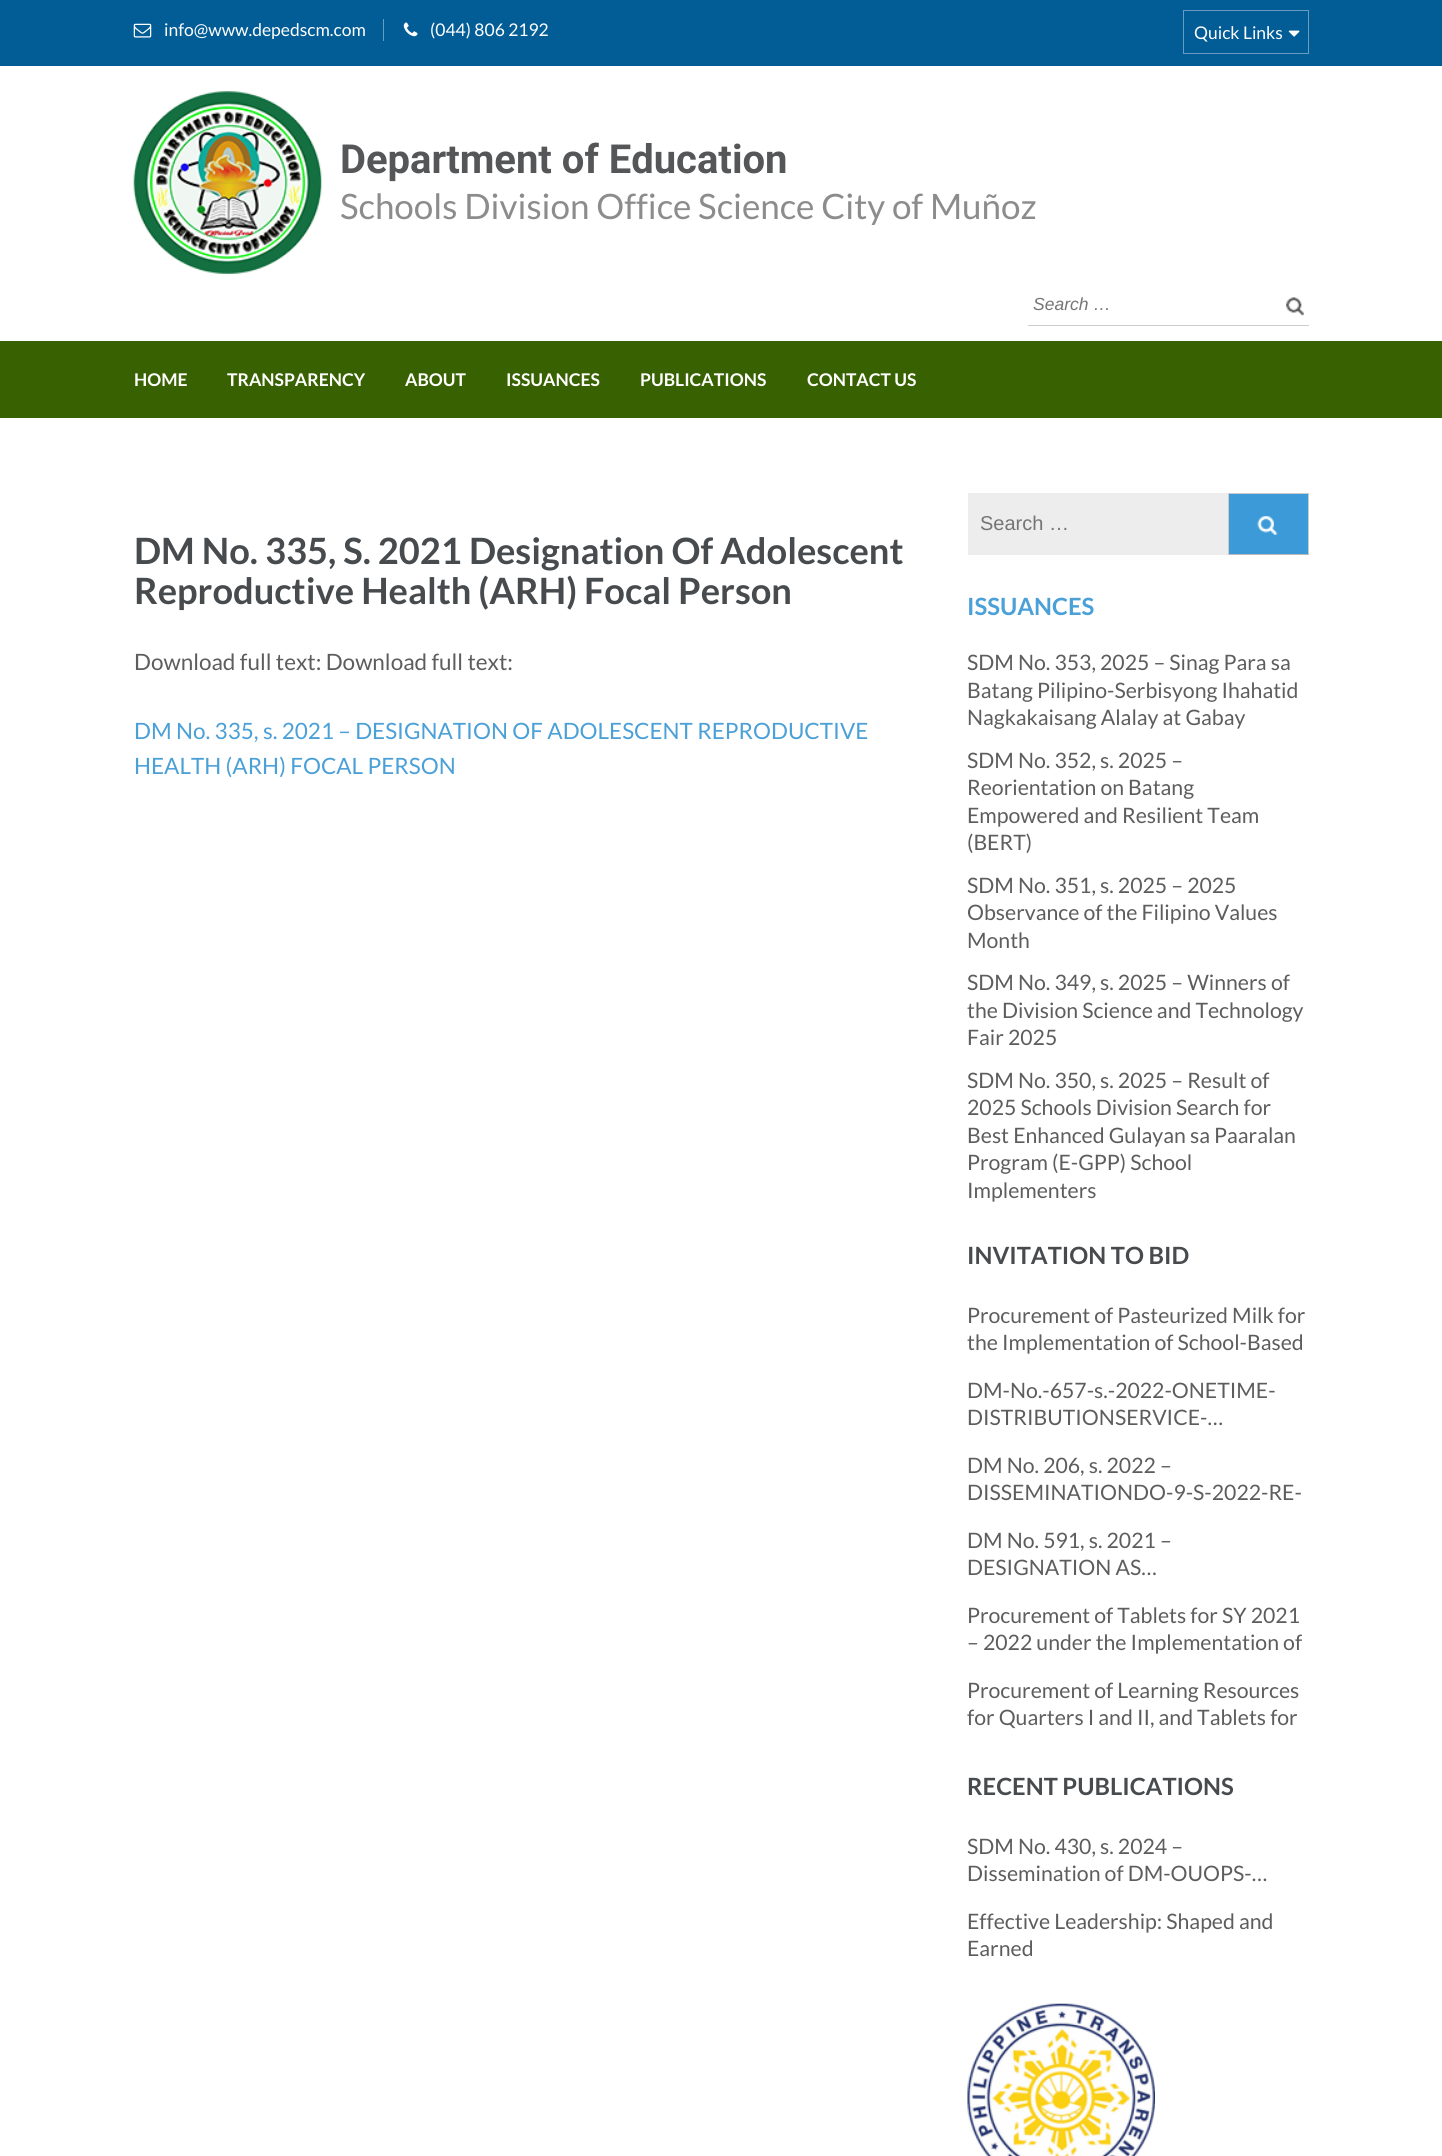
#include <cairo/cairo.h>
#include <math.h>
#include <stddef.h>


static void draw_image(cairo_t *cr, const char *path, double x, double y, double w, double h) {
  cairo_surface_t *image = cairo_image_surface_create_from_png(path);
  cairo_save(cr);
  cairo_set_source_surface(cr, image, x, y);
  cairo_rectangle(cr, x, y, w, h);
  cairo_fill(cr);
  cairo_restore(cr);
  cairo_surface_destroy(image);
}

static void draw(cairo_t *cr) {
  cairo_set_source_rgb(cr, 1, 1, 1);
  cairo_paint(cr);
  cairo_set_source_rgb(cr, 2 / 255.0, 92 / 255.0, 150 / 255.0);
  cairo_rectangle(cr, 0, 0, 1442, 66);
  cairo_fill(cr);
  draw_image(cr, "images/1.png", 133, 23, 19, 15);
  cairo_set_source_rgb(cr, 103 / 255.0, 157 / 255.0, 192 / 255.0);
  cairo_rectangle(cr, 383, 19, 1, 22);
  cairo_fill(cr);
  draw_image(cr, "images/2.png", 403, 22, 15, 15);
  cairo_rectangle(cr, 1183.5, 10.5, 125, 43);
  cairo_set_line_width(cr, 1);
  cairo_stroke(cr);
  draw_image(cr, "images/3.png", 1288, 30, 12, 7);
  draw_image(cr, "images/4.png", 133, 91, 189, 183);
  cairo_set_source_rgb(cr, 204 / 255.0, 204 / 255.0, 204 / 255.0);
  cairo_rectangle(cr, 1028, 325, 281, 1);
  cairo_fill(cr);
  draw_image(cr, "images/5.png", 1286, 297, 18, 19);
  cairo_set_source_rgb(cr, 56 / 255.0, 98 / 255.0, 2 / 255.0);
  cairo_rectangle(cr, 0, 341, 1442, 77);
  cairo_fill(cr);
  cairo_set_source_rgb(cr, 237 / 255.0, 237 / 255.0, 237 / 255.0);
  cairo_rectangle(cr, 968, 493, 260, 62);
  cairo_fill(cr);
  cairo_set_source_rgb(cr, 59 / 255.0, 154 / 255.0, 215 / 255.0);
  cairo_rectangle(cr, 1229, 494, 79, 60);
  cairo_fill(cr);
  draw_image(cr, "images/6.png", 1257, 516, 21, 19);
  cairo_set_source_rgb(cr, 204 / 255.0, 204 / 255.0, 204 / 255.0);
  cairo_rectangle(cr, 1228, 493, 81, 1);
  cairo_fill(cr);
  cairo_rectangle(cr, 1308, 493, 1, 62);
  cairo_fill(cr);
  cairo_set_source_rgb(cr, 187 / 255.0, 187 / 255.0, 187 / 255.0);
  cairo_rectangle(cr, 1228, 554, 81, 1);
  cairo_fill(cr);
  cairo_set_source_rgb(cr, 204 / 255.0, 204 / 255.0, 204 / 255.0);
  cairo_rectangle(cr, 1228, 493, 1, 62);
  cairo_fill(cr);
  draw_image(cr, "images/7.png", 967, 2003, 188, 153);
  cairo_select_font_face(cr, "Lato", CAIRO_FONT_SLANT_NORMAL, CAIRO_FONT_WEIGHT_NORMAL);
  cairo_set_font_size(cr, 17.5);
  cairo_set_source_rgb(cr, 1, 1, 1);
  cairo_move_to(cr, 164, 36);
  cairo_show_text(cr, "info@www.depedscm.com");
  cairo_move_to(cr, 430, 36);
  cairo_show_text(cr, "(044) 806 2192");
  cairo_move_to(cr, 1194, 39);
  cairo_show_text(cr, "Quick Links");
  cairo_select_font_face(cr, "Roboto", CAIRO_FONT_SLANT_NORMAL, CAIRO_FONT_WEIGHT_BOLD);
  cairo_set_font_size(cr, 40);
  cairo_set_source_rgb(cr, 85 / 255.0, 86 / 255.0, 88 / 255.0);
  cairo_move_to(cr, 340, 173);
  cairo_show_text(cr, "Department of Education");
  cairo_select_font_face(cr, "Lato", CAIRO_FONT_SLANT_NORMAL, CAIRO_FONT_WEIGHT_NORMAL);
  cairo_set_font_size(cr, 35);
  cairo_set_source_rgb(cr, 140 / 255.0, 140 / 255.0, 140 / 255.0);
  cairo_move_to(cr, 340, 219);
  cairo_show_text(cr, "Schools Division Office Science City of Muñoz");
  cairo_select_font_face(cr, "Liberation Sans", CAIRO_FONT_SLANT_ITALIC, CAIRO_FONT_WEIGHT_NORMAL);
  cairo_set_font_size(cr, 17.5);
  cairo_set_source_rgb(cr, 117 / 255.0, 117 / 255.0, 117 / 255.0);
  cairo_move_to(cr, 1033, 310);
  cairo_show_text(cr, "Search …");
  cairo_select_font_face(cr, "Lato", CAIRO_FONT_SLANT_NORMAL, CAIRO_FONT_WEIGHT_BOLD);
  cairo_set_source_rgb(cr, 1, 1, 1);
  cairo_move_to(cr, 134, 386);
  cairo_show_text(cr, "HOME");
  cairo_move_to(cr, 227, 386);
  cairo_show_text(cr, "TRANSPARENCY");
  cairo_move_to(cr, 405, 386);
  cairo_show_text(cr, "ABOUT");
  cairo_move_to(cr, 506, 386);
  cairo_show_text(cr, "ISSUANCES");
  cairo_move_to(cr, 640, 386);
  cairo_show_text(cr, "PUBLICATIONS");
  cairo_move_to(cr, 807, 386);
  cairo_show_text(cr, "CONTACT US");
  cairo_set_font_size(cr, 36.25);
  cairo_set_source_rgb(cr, 71 / 255.0, 75 / 255.0, 78 / 255.0);
  cairo_move_to(cr, 134, 564);
  cairo_show_text(cr, "DM No. 335, S. 2021 Designation Of Adolescent");
  cairo_move_to(cr, 134, 604);
  cairo_show_text(cr, "Reproductive Health (ARH) Focal Person");
  cairo_select_font_face(cr, "Lato", CAIRO_FONT_SLANT_NORMAL, CAIRO_FONT_WEIGHT_NORMAL);
  cairo_set_font_size(cr, 22.5);
  cairo_set_source_rgb(cr, 93 / 255.0, 93 / 255.0, 93 / 255.0);
  cairo_move_to(cr, 134, 670);
  cairo_show_text(cr, "Download full text: Download full text:");
  cairo_set_source_rgb(cr, 74 / 255.0, 160 / 255.0, 215 / 255.0);
  cairo_move_to(cr, 134, 739);
  cairo_show_text(cr, "DM No. 335, s. 2021 – DESIGNATION OF ADOLESCENT REPRODUCTIVE");
  cairo_move_to(cr, 134, 774);
  cairo_show_text(cr, "HEALTH (ARH) FOCAL PERSON");
  cairo_select_font_face(cr, "Liberation Sans", CAIRO_FONT_SLANT_NORMAL, CAIRO_FONT_WEIGHT_NORMAL);
  cairo_set_font_size(cr, 20);
  cairo_set_source_rgb(cr, 117 / 255.0, 117 / 255.0, 117 / 255.0);
  cairo_move_to(cr, 980, 530);
  cairo_show_text(cr, "Search …");
  cairo_select_font_face(cr, "Lato", CAIRO_FONT_SLANT_NORMAL, CAIRO_FONT_WEIGHT_BOLD);
  cairo_set_font_size(cr, 23.75);
  cairo_set_source_rgb(cr, 74 / 255.0, 160 / 255.0, 215 / 255.0);
  cairo_move_to(cr, 967, 615);
  cairo_show_text(cr, "ISSUANCES");
  cairo_select_font_face(cr, "Lato", CAIRO_FONT_SLANT_NORMAL, CAIRO_FONT_WEIGHT_NORMAL);
  cairo_set_font_size(cr, 21.25);
  cairo_set_source_rgb(cr, 93 / 255.0, 93 / 255.0, 93 / 255.0);
  cairo_move_to(cr, 967, 670);
  cairo_show_text(cr, "SDM No. 353, 2025 – Sinag Para sa");
  cairo_move_to(cr, 967, 698);
  cairo_show_text(cr, "Batang Pilipino-Serbisyong Ihahatid");
  cairo_move_to(cr, 967, 725);
  cairo_show_text(cr, "Nagkakaisang Alalay at Gabay");
  cairo_move_to(cr, 967, 768);
  cairo_show_text(cr, "SDM No. 352, s. 2025 –");
  cairo_move_to(cr, 967, 795);
  cairo_show_text(cr, "Reorientation on Batang");
  cairo_move_to(cr, 967, 823);
  cairo_show_text(cr, "Empowered and Resilient Team");
  cairo_move_to(cr, 967, 850);
  cairo_show_text(cr, "(BERT)");
  cairo_move_to(cr, 967, 893);
  cairo_show_text(cr, "SDM No. 351, s. 2025 – 2025");
  cairo_move_to(cr, 967, 920);
  cairo_show_text(cr, "Observance of the Filipino Values");
  cairo_move_to(cr, 967, 948);
  cairo_show_text(cr, "Month");
  cairo_move_to(cr, 967, 990);
  cairo_show_text(cr, "SDM No. 349, s. 2025 – Winners of");
  cairo_move_to(cr, 967, 1018);
  cairo_show_text(cr, "the Division Science and Technology");
  cairo_move_to(cr, 967, 1045);
  cairo_show_text(cr, "Fair 2025");
  cairo_move_to(cr, 967, 1088);
  cairo_show_text(cr, "SDM No. 350, s. 2025 – Result of");
  cairo_move_to(cr, 967, 1115);
  cairo_show_text(cr, "2025 Schools Division Search for");
  cairo_move_to(cr, 967, 1143);
  cairo_show_text(cr, "Best Enhanced Gulayan sa Paaralan");
  cairo_move_to(cr, 967, 1170);
  cairo_show_text(cr, "Program (E-GPP) School");
  cairo_move_to(cr, 967, 1198);
  cairo_show_text(cr, "Implementers");
  cairo_select_font_face(cr, "Lato", CAIRO_FONT_SLANT_NORMAL, CAIRO_FONT_WEIGHT_BOLD);
  cairo_set_font_size(cr, 23.75);
  cairo_set_source_rgb(cr, 71 / 255.0, 75 / 255.0, 78 / 255.0);
  cairo_move_to(cr, 967, 1264);
  cairo_show_text(cr, "INVITATION TO BID");
  cairo_select_font_face(cr, "Lato", CAIRO_FONT_SLANT_NORMAL, CAIRO_FONT_WEIGHT_NORMAL);
  cairo_set_font_size(cr, 21.25);
  cairo_set_source_rgb(cr, 93 / 255.0, 93 / 255.0, 93 / 255.0);
  cairo_move_to(cr, 967, 1323);
  cairo_show_text(cr, "Procurement of Pasteurized Milk for");
  cairo_move_to(cr, 967, 1350);
  cairo_show_text(cr, "the Implementation of School-Based");
  cairo_move_to(cr, 967, 1398);
  cairo_show_text(cr, "DM-No.-657-s.-2022-ONETIME-");
  cairo_move_to(cr, 967, 1425);
  cairo_show_text(cr, "DISTRIBUTIONSERVICE-…");
  cairo_move_to(cr, 967, 1473);
  cairo_show_text(cr, "DM No. 206, s. 2022 –");
  cairo_move_to(cr, 967, 1500);
  cairo_show_text(cr, "DISSEMINATIONDO-9-S-2022-RE-");
  cairo_move_to(cr, 967, 1548);
  cairo_show_text(cr, "DM No. 591, s. 2021 –");
  cairo_move_to(cr, 967, 1575);
  cairo_show_text(cr, "DESIGNATION AS…");
  cairo_move_to(cr, 967, 1623);
  cairo_show_text(cr, "Procurement of Tablets for SY 2021");
  cairo_move_to(cr, 967, 1650);
  cairo_show_text(cr, "– 2022 under the Implementation of");
  cairo_move_to(cr, 967, 1698);
  cairo_show_text(cr, "Procurement of Learning Resources");
  cairo_move_to(cr, 967, 1725);
  cairo_show_text(cr, "for Quarters I and II, and Tablets for");
  cairo_select_font_face(cr, "Lato", CAIRO_FONT_SLANT_NORMAL, CAIRO_FONT_WEIGHT_BOLD);
  cairo_set_font_size(cr, 23.75);
  cairo_set_source_rgb(cr, 71 / 255.0, 75 / 255.0, 78 / 255.0);
  cairo_move_to(cr, 967, 1795);
  cairo_show_text(cr, "RECENT PUBLICATIONS");
  cairo_select_font_face(cr, "Lato", CAIRO_FONT_SLANT_NORMAL, CAIRO_FONT_WEIGHT_NORMAL);
  cairo_set_font_size(cr, 21.25);
  cairo_set_source_rgb(cr, 93 / 255.0, 93 / 255.0, 93 / 255.0);
  cairo_move_to(cr, 967, 1854);
  cairo_show_text(cr, "SDM No. 430, s. 2024 –");
  cairo_move_to(cr, 967, 1881);
  cairo_show_text(cr, "Dissemination of DM-OUOPS-…");
  cairo_move_to(cr, 967, 1929);
  cairo_show_text(cr, "Effective Leadership: Shaped and");
  cairo_move_to(cr, 967, 1956);
  cairo_show_text(cr, "Earned");
}

int main(void) {
  cairo_surface_t *surface = cairo_image_surface_create(CAIRO_FORMAT_RGB24, 1442, 2156);
  cairo_t *cr = cairo_create(surface);
  cairo_font_options_t *options = cairo_font_options_create();
  cairo_font_options_set_hint_metrics(options, CAIRO_HINT_METRICS_OFF);
  cairo_font_options_set_hint_style(options, CAIRO_HINT_STYLE_NONE);
  cairo_set_font_options(cr, options);
  cairo_set_miter_limit(cr, 4);
  draw(cr);
  cairo_surface_write_to_png(surface, "out.png");
  cairo_font_options_destroy(options);
  cairo_destroy(cr);
  cairo_surface_destroy(surface);
  return 0;
}
